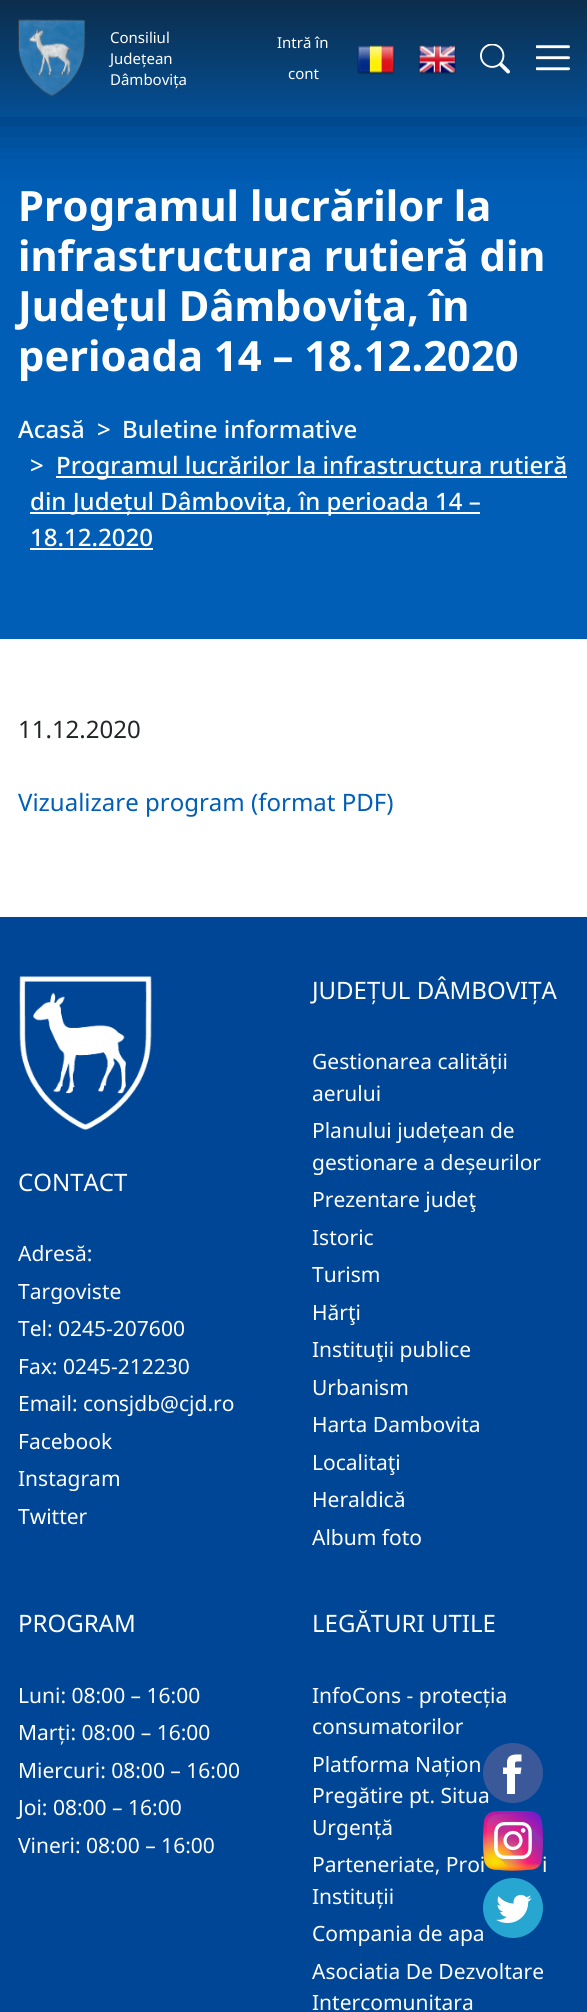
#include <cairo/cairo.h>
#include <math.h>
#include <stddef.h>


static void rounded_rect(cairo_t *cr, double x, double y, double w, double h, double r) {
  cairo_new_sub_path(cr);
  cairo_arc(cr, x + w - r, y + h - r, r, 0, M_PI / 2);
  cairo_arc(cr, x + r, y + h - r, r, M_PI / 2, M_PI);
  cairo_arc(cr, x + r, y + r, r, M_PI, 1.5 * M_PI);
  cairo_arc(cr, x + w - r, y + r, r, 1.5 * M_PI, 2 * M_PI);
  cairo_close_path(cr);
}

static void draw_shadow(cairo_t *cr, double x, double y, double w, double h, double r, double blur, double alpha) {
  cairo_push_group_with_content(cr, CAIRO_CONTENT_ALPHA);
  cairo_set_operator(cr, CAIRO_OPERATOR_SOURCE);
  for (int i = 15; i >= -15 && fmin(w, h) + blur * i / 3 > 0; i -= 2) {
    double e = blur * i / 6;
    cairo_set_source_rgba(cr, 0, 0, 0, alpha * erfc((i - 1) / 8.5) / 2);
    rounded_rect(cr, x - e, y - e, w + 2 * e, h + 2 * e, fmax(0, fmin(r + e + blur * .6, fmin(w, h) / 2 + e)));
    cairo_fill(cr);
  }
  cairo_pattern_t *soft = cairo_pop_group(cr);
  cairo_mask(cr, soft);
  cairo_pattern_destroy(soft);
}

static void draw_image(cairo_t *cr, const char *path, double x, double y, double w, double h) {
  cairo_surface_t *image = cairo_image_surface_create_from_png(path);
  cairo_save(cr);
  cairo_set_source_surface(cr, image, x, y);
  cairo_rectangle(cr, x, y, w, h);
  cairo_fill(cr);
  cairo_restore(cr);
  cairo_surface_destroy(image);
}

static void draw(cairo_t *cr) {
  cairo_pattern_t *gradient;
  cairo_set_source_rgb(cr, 1, 1, 1);
  cairo_paint(cr);
  cairo_set_source_rgb(cr, 0, 94 / 255.0, 182 / 255.0);
  cairo_rectangle(cr, 0, 117, 587, 522);
  cairo_fill(cr);
  cairo_set_source_rgb(cr, 0, 0, 0);
  draw_shadow(cr, -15, -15, 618, 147, 0, 32, 0.35);
  gradient = cairo_pattern_create_linear(294, 0, 294, 117);
  cairo_pattern_add_color_stop_rgba(gradient, 0, 12 / 255.0, 45 / 255.0, 75 / 255.0, 1);
  cairo_pattern_add_color_stop_rgba(gradient, 1, 4 / 255.0, 79 / 255.0, 149 / 255.0, 1);
  cairo_set_source(cr, gradient);
  cairo_pattern_destroy(gradient);
  cairo_rectangle(cr, 0, 0, 587, 117);
  cairo_fill(cr);
  draw_image(cr, "images/1.png", 18, 19, 68, 78);
  draw_image(cr, "images/2.png", 357, 45, 38, 30);
  draw_image(cr, "images/3.png", 418, 45, 38, 30);
  draw_image(cr, "images/4.png", 480, 44, 30, 30);
  draw_image(cr, "images/5.png", 536, 45, 34, 26);
  cairo_set_source_rgb(cr, 1, 1, 1);
  cairo_rectangle(cr, 56, 476, 511, 2);
  cairo_fill(cr);
  cairo_rectangle(cr, 30, 512, 450, 2);
  cairo_fill(cr);
  cairo_rectangle(cr, 30, 548, 123, 2);
  cairo_fill(cr);
  cairo_set_source_rgb(cr, 0, 70 / 255.0, 150 / 255.0);
  cairo_rectangle(cr, 0, 917, 587, 1095);
  cairo_fill(cr);
  draw_image(cr, "images/6.png", 19, 976, 133, 154);
  draw_image(cr, "images/8.png", 483, 1878, 60, 60);
  cairo_select_font_face(cr, "Noto Sans", CAIRO_FONT_SLANT_NORMAL, CAIRO_FONT_WEIGHT_NORMAL);
  cairo_set_font_size(cr, 15);
  cairo_set_source_rgb(cr, 1, 1, 1);
  cairo_move_to(cr, 110, 43);
  cairo_show_text(cr, "Consiliul");
  cairo_move_to(cr, 110, 64);
  cairo_show_text(cr, "Județean");
  cairo_move_to(cr, 110, 85);
  cairo_show_text(cr, "Dâmbovița");
  cairo_move_to(cr, 277, 48);
  cairo_show_text(cr, "Intră în");
  cairo_move_to(cr, 288, 79);
  cairo_show_text(cr, "cont");
  cairo_select_font_face(cr, "Noto Sans", CAIRO_FONT_SLANT_NORMAL, CAIRO_FONT_WEIGHT_BOLD);
  cairo_set_font_size(cr, 41.75);
  cairo_move_to(cr, 18, 221);
  cairo_show_text(cr, "Programul lucrărilor la");
  cairo_move_to(cr, 18, 271);
  cairo_show_text(cr, "infrastructura rutieră din");
  cairo_move_to(cr, 18, 321);
  cairo_show_text(cr, "Județul Dâmbovița, în");
  cairo_move_to(cr, 18, 371);
  cairo_show_text(cr, "perioada 14 – 18.12.2020");
  cairo_select_font_face(cr, "Noto Sans Medium", CAIRO_FONT_SLANT_NORMAL, CAIRO_FONT_WEIGHT_NORMAL);
  cairo_set_font_size(cr, 24);
  cairo_move_to(cr, 18, 438);
  cairo_show_text(cr, "Acasă");
  cairo_move_to(cr, 97, 438);
  cairo_show_text(cr, ">");
  cairo_move_to(cr, 122, 438);
  cairo_show_text(cr, "Buletine informative");
  cairo_move_to(cr, 30, 474);
  cairo_show_text(cr, ">");
  cairo_move_to(cr, 56, 474);
  cairo_show_text(cr, "Programul lucrărilor la infrastructura rutieră");
  cairo_move_to(cr, 30, 510);
  cairo_show_text(cr, "din Județul Dâmbovița, în perioada 14 –");
  cairo_move_to(cr, 30, 546);
  cairo_show_text(cr, "18.12.2020");
  cairo_select_font_face(cr, "Noto Sans", CAIRO_FONT_SLANT_NORMAL, CAIRO_FONT_WEIGHT_NORMAL);
  cairo_set_source_rgb(cr, 33 / 255.0, 37 / 255.0, 41 / 255.0);
  cairo_move_to(cr, 18, 738);
  cairo_show_text(cr, "11.12.2020");
  cairo_set_source_rgb(cr, 0, 94 / 255.0, 182 / 255.0);
  cairo_move_to(cr, 18, 811);
  cairo_show_text(cr, "Vizualizare program (format PDF)");
  cairo_set_source_rgb(cr, 1, 1, 1);
  cairo_move_to(cr, 18, 1191);
  cairo_show_text(cr, "CONTACT");
  cairo_set_font_size(cr, 21);
  cairo_move_to(cr, 18, 1261);
  cairo_show_text(cr, "Adresă:");
  cairo_move_to(cr, 18, 1299);
  cairo_show_text(cr, "Targoviste");
  cairo_move_to(cr, 18, 1336);
  cairo_show_text(cr, "Tel: 0245-207600");
  cairo_move_to(cr, 18, 1374);
  cairo_show_text(cr, "Fax: 0245-212230");
  cairo_move_to(cr, 18, 1411);
  cairo_show_text(cr, "Email: consjdb@cjd.ro");
  cairo_move_to(cr, 18, 1449);
  cairo_show_text(cr, "Facebook");
  cairo_move_to(cr, 18, 1486);
  cairo_show_text(cr, "Instagram");
  cairo_move_to(cr, 18, 1524);
  cairo_show_text(cr, "Twitter");
  cairo_set_font_size(cr, 24);
  cairo_move_to(cr, 312, 999);
  cairo_show_text(cr, "JUDEȚUL DÂMBOVIȚA");
  cairo_set_font_size(cr, 21);
  cairo_move_to(cr, 312, 1069);
  cairo_show_text(cr, "Gestionarea calității");
  cairo_move_to(cr, 312, 1101);
  cairo_show_text(cr, "aerului");
  cairo_move_to(cr, 312, 1138);
  cairo_show_text(cr, "Planului județean de");
  cairo_move_to(cr, 312, 1170);
  cairo_show_text(cr, "gestionare a deșeurilor");
  cairo_move_to(cr, 312, 1207);
  cairo_show_text(cr, "Prezentare judeţ");
  cairo_move_to(cr, 312, 1245);
  cairo_show_text(cr, "Istoric");
  cairo_move_to(cr, 312, 1282);
  cairo_show_text(cr, "Turism");
  cairo_move_to(cr, 312, 1320);
  cairo_show_text(cr, "Hărţi");
  cairo_move_to(cr, 312, 1357);
  cairo_show_text(cr, "Instituţii publice");
  cairo_move_to(cr, 312, 1395);
  cairo_show_text(cr, "Urbanism");
  cairo_move_to(cr, 312, 1432);
  cairo_show_text(cr, "Harta Dambovita");
  cairo_move_to(cr, 312, 1470);
  cairo_show_text(cr, "Localitaţi");
  cairo_move_to(cr, 312, 1507);
  cairo_show_text(cr, "Heraldică");
  cairo_move_to(cr, 312, 1545);
  cairo_show_text(cr, "Album foto");
  cairo_set_font_size(cr, 24);
  cairo_move_to(cr, 18, 1632);
  cairo_show_text(cr, "PROGRAM");
  cairo_set_font_size(cr, 21);
  cairo_move_to(cr, 18, 1703);
  cairo_show_text(cr, "Luni: 08:00 – 16:00");
  cairo_move_to(cr, 18, 1740);
  cairo_show_text(cr, "Marți: 08:00 – 16:00");
  cairo_move_to(cr, 18, 1778);
  cairo_show_text(cr, "Miercuri: 08:00 – 16:00");
  cairo_move_to(cr, 18, 1815);
  cairo_show_text(cr, "Joi: 08:00 – 16:00");
  cairo_move_to(cr, 18, 1853);
  cairo_show_text(cr, "Vineri: 08:00 – 16:00");
  cairo_set_font_size(cr, 24);
  cairo_move_to(cr, 312, 1632);
  cairo_show_text(cr, "LEGĂTURI UTILE");
  cairo_set_font_size(cr, 21);
  cairo_move_to(cr, 312, 1703);
  cairo_show_text(cr, "InfoCons - protecția");
  cairo_move_to(cr, 312, 1734);
  cairo_show_text(cr, "consumatorilor");
  cairo_move_to(cr, 312, 1772);
  cairo_show_text(cr, "Platforma Națion");
  cairo_move_to(cr, 312, 1803);
  cairo_show_text(cr, "Pregătire pt. Situa");
  cairo_move_to(cr, 312, 1835);
  cairo_show_text(cr, "Urgență");
  cairo_move_to(cr, 312, 1872);
  cairo_show_text(cr, "Parteneriate, Proi");
  cairo_move_to(cr, 542, 1872);
  cairo_show_text(cr, "i");
  cairo_move_to(cr, 312, 1904);
  cairo_show_text(cr, "Instituții");
  cairo_move_to(cr, 312, 1941);
  cairo_show_text(cr, "Compania de apa");
  cairo_move_to(cr, 312, 1979);
  cairo_show_text(cr, "Asociatia De Dezvoltare");
  cairo_move_to(cr, 312, 2010);
  cairo_show_text(cr, "Intercomunitara");
  cairo_set_source_rgb(cr, 59 / 255.0, 89 / 255.0, 152 / 255.0);
  cairo_new_path(cr);
  cairo_arc(cr, 513, 1773, 30, 0, 2 * M_PI);
  cairo_fill(cr);
  cairo_set_source_rgb(cr, 1, 1, 1);
  cairo_new_path(cr);
  cairo_move_to(cr, 520.5, 1774);
  cairo_line_to(cr, 515, 1774);
  cairo_line_to(cr, 515, 1794);
  cairo_line_to(cr, 507, 1794);
  cairo_line_to(cr, 507, 1774);
  cairo_line_to(cr, 503, 1774);
  cairo_line_to(cr, 503, 1767.5);
  cairo_line_to(cr, 507, 1767.5);
  cairo_line_to(cr, 507, 1761.5);
  cairo_curve_to(cr, 508, 1753.5, 515.5, 1754.5, 521.5, 1754.5);
  cairo_line_to(cr, 521.5, 1761.5);
  cairo_curve_to(cr, 514.5, 1761.5, 515, 1760.5, 515, 1767.5);
  cairo_line_to(cr, 521.5, 1767.5);
  cairo_close_path(cr);
  cairo_fill(cr);
  draw_image(cr, "images/7.png", 483, 1811, 60, 60);
}

int main(void) {
  cairo_surface_t *surface = cairo_image_surface_create(CAIRO_FORMAT_RGB24, 587, 2012);
  cairo_t *cr = cairo_create(surface);
  cairo_font_options_t *options = cairo_font_options_create();
  cairo_font_options_set_hint_metrics(options, CAIRO_HINT_METRICS_OFF);
  cairo_font_options_set_hint_style(options, CAIRO_HINT_STYLE_NONE);
  cairo_set_font_options(cr, options);
  cairo_set_miter_limit(cr, 4);
  draw(cr);
  cairo_surface_write_to_png(surface, "out.png");
  cairo_font_options_destroy(options);
  cairo_destroy(cr);
  cairo_surface_destroy(surface);
  return 0;
}
